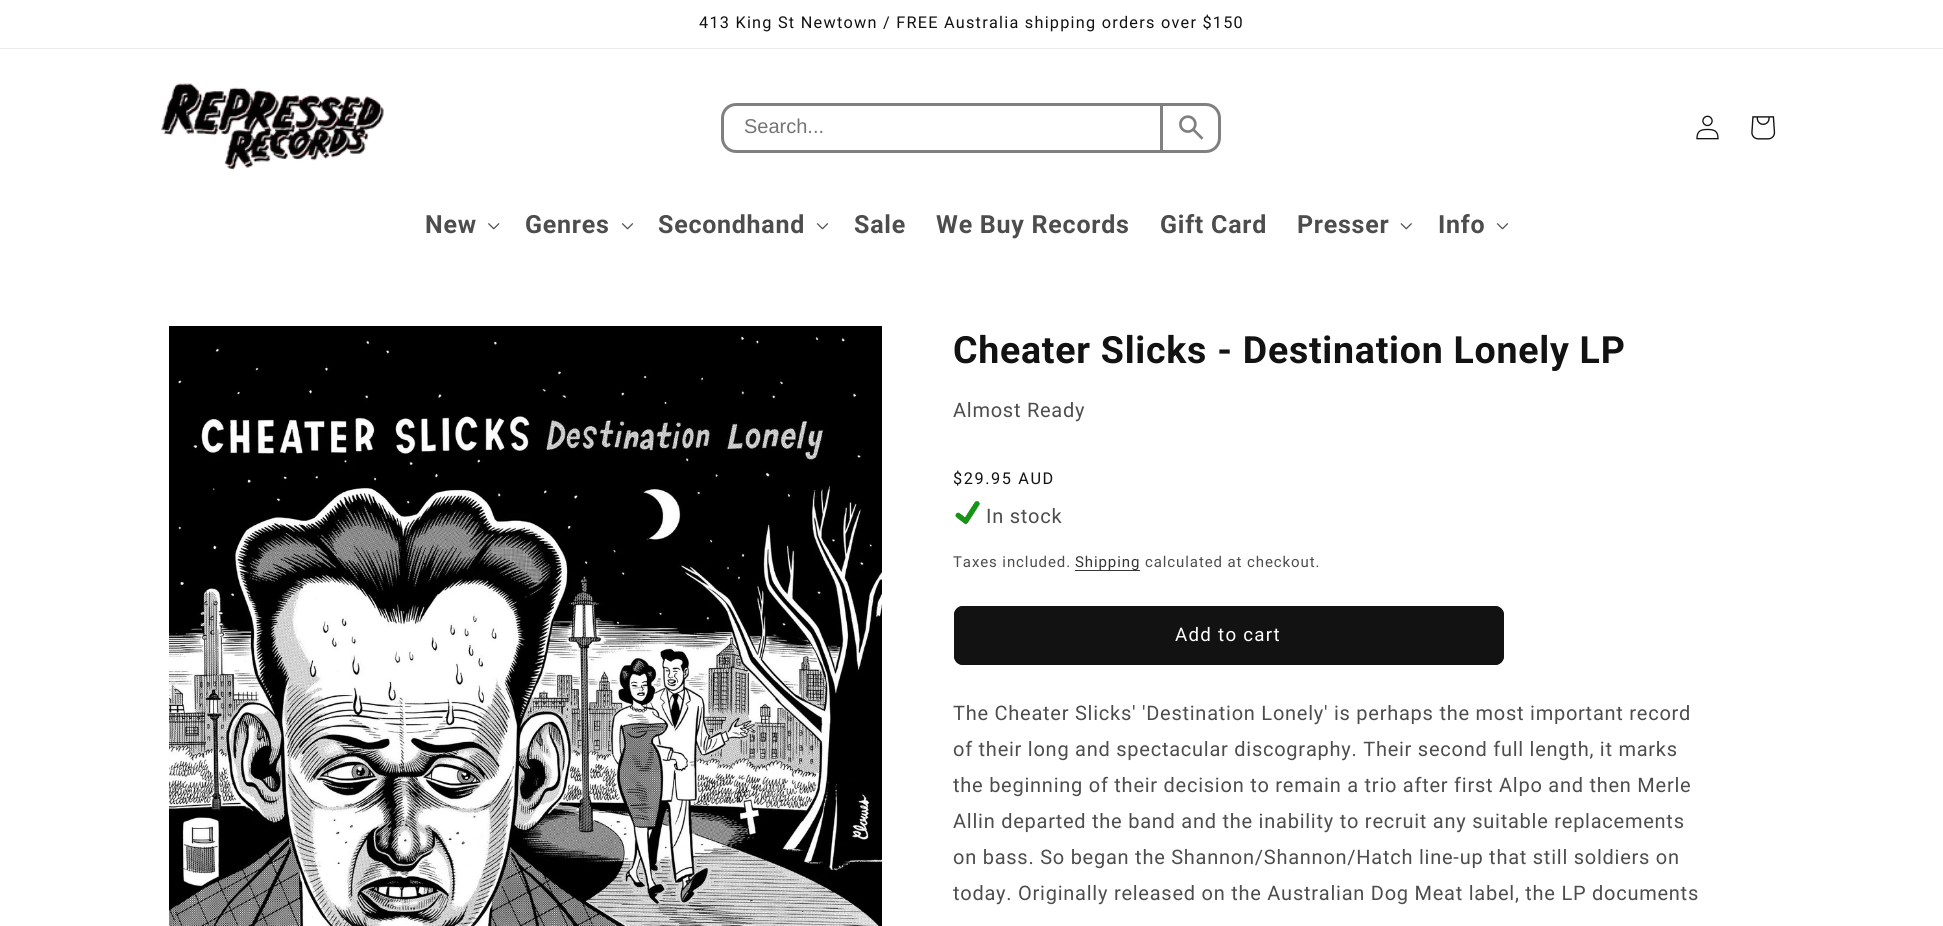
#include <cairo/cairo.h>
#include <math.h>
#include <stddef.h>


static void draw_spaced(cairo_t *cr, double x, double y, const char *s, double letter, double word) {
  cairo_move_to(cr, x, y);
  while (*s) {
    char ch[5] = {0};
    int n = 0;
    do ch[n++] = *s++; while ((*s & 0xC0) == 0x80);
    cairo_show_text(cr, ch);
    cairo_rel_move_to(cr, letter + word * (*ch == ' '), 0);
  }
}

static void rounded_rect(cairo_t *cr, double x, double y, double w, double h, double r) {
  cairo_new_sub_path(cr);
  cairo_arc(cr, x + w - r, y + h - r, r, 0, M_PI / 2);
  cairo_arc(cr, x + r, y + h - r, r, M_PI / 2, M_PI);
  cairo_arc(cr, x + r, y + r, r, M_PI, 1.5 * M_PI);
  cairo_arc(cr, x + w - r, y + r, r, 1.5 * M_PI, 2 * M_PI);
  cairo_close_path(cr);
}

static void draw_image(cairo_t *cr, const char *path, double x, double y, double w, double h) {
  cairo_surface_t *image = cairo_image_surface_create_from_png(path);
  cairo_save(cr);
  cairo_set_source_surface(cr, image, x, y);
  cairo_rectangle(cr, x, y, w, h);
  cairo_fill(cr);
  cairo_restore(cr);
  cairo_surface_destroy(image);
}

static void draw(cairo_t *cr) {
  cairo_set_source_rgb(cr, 1, 1, 1);
  cairo_paint(cr);
  cairo_set_source_rgb(cr, 236 / 255.0, 236 / 255.0, 236 / 255.0);
  cairo_rectangle(cr, 0, 48, 1943, 1);
  cairo_fill(cr);
  draw_image(cr, "images/1.png", 161, 83, 223, 87);
  rounded_rect(cr, 722.5, 104.5, 497, 47, 13.5);
  cairo_set_source_rgb(cr, 128 / 255.0, 128 / 255.0, 128 / 255.0);
  cairo_set_line_width(cr, 3);
  cairo_stroke(cr);
  cairo_rectangle(cr, 1160, 105, 3, 45);
  cairo_fill(cr);
  draw_image(cr, "images/2.png", 1179, 115, 25, 25);
  draw_image(cr, "images/3.png", 1696, 115, 23, 25);
  draw_image(cr, "images/4.png", 1751, 116, 25, 24);
  draw_image(cr, "images/5.png", 488, 223, 12, 7);
  draw_image(cr, "images/6.png", 621, 223, 13, 7);
  draw_image(cr, "images/6.png", 816, 223, 13, 7);
  draw_image(cr, "images/7.png", 1400, 223, 12, 7);
  draw_image(cr, "images/6.png", 1496, 223, 13, 7);
  draw_image(cr, "images/8.png", 169, 326, 713, 600);
  draw_image(cr, "images/9.png", 955, 501, 25, 23);
  cairo_set_source_rgb(cr, 54 / 255.0, 54 / 255.0, 54 / 255.0);
  cairo_rectangle(cr, 1075, 570, 65, 1);
  cairo_fill(cr);
  cairo_set_source_rgb(cr, 18 / 255.0, 18 / 255.0, 18 / 255.0);
  rounded_rect(cr, 954, 606, 550, 59, 9);
  cairo_fill(cr);
  rounded_rect(cr, 954.5, 606.5, 549, 58, 8.5);
  cairo_set_line_width(cr, 1);
  cairo_stroke(cr);
  cairo_select_font_face(cr, "Roboto", CAIRO_FONT_SLANT_NORMAL, CAIRO_FONT_WEIGHT_NORMAL);
  cairo_set_font_size(cr, 16.25);
  draw_spaced(cr, 699, 28, "413 King St Newtown / FREE Australia shipping orders over $150", 1.25, 0);
  cairo_select_font_face(cr, "Liberation Sans", CAIRO_FONT_SLANT_NORMAL, CAIRO_FONT_WEIGHT_NORMAL);
  cairo_set_font_size(cr, 20);
  cairo_set_source_rgb(cr, 117 / 255.0, 117 / 255.0, 117 / 255.0);
  cairo_move_to(cr, 744, 133);
  cairo_show_text(cr, "Search...");
  cairo_select_font_face(cr, "Roboto", CAIRO_FONT_SLANT_NORMAL, CAIRO_FONT_WEIGHT_BOLD);
  cairo_set_font_size(cr, 25);
  cairo_set_source_rgb(cr, 77 / 255.0, 77 / 255.0, 77 / 255.0);
  draw_spaced(cr, 425, 233, "New", 0.75, 0);
  draw_spaced(cr, 525, 233, "Genres", 0.75, 0);
  draw_spaced(cr, 658, 233, "Secondhand", 0.75, 0);
  draw_spaced(cr, 854, 233, "Sale", 0.75, 0);
  draw_spaced(cr, 936, 233, "We Buy Records", 0.75, 0);
  draw_spaced(cr, 1160, 233, "Gift Card", 0.75, 0);
  draw_spaced(cr, 1297, 233, "Presser", 0.75, 0);
  draw_spaced(cr, 1438, 233, "Info", 0.75, 0);
  cairo_set_font_size(cr, 37.5);
  cairo_set_source_rgb(cr, 18 / 255.0, 18 / 255.0, 18 / 255.0);
  draw_spaced(cr, 953, 363, "Cheater Slicks - Destination Lonely LP", 0.75, 0);
  cairo_select_font_face(cr, "Roboto", CAIRO_FONT_SLANT_NORMAL, CAIRO_FONT_WEIGHT_NORMAL);
  cairo_set_font_size(cr, 20);
  cairo_set_source_rgb(cr, 77 / 255.0, 77 / 255.0, 77 / 255.0);
  draw_spaced(cr, 953, 417, "Almost Ready", 0.75, 0);
  cairo_set_font_size(cr, 16.25);
  cairo_set_source_rgb(cr, 18 / 255.0, 18 / 255.0, 18 / 255.0);
  draw_spaced(cr, 953, 484, "$29.95 AUD", 1.6, 0);
  cairo_set_font_size(cr, 20);
  cairo_set_source_rgb(cr, 77 / 255.0, 77 / 255.0, 77 / 255.0);
  draw_spaced(cr, 986, 523, "In stock", 0.75, 0);
  cairo_set_font_size(cr, 15);
  draw_spaced(cr, 953, 567, "Taxes included.", 0.9, 0);
  cairo_set_source_rgb(cr, 53 / 255.0, 53 / 255.0, 53 / 255.0);
  draw_spaced(cr, 1075, 567, "Shipping", 0.9, 0);
  cairo_set_source_rgb(cr, 77 / 255.0, 77 / 255.0, 77 / 255.0);
  draw_spaced(cr, 1145, 567, "calculated at checkout.", 0.9, 0);
  cairo_set_font_size(cr, 18.75);
  cairo_set_source_rgb(cr, 1, 1, 1);
  draw_spaced(cr, 1175, 641, "Add to cart", 1.25, 0);
  cairo_set_font_size(cr, 20);
  cairo_set_source_rgb(cr, 77 / 255.0, 77 / 255.0, 77 / 255.0);
  draw_spaced(cr, 953, 720, "The Cheater Slicks' 'Destination Lonely' is perhaps the most important record", 0.75, 0);
  draw_spaced(cr, 953, 756, "of their long and spectacular discography. Their second full length, it marks", 0.75, 0);
  draw_spaced(cr, 953, 792, "the beginning of their decision to remain a trio after first Alpo and then Merle", 0.75, 0);
  draw_spaced(cr, 953, 828, "Allin departed the band and the inability to recruit any suitable replacements", 0.75, 0);
  draw_spaced(cr, 953, 864, "on bass. So began the Shannon/Shannon/Hatch line-up that still soldiers on", 0.75, 0);
  draw_spaced(cr, 953, 900, "today. Originally released on the Australian Dog Meat label, the LP documents", 0.75, 0);
}

int main(void) {
  cairo_surface_t *surface = cairo_image_surface_create(CAIRO_FORMAT_RGB24, 1943, 926);
  cairo_t *cr = cairo_create(surface);
  cairo_font_options_t *options = cairo_font_options_create();
  cairo_font_options_set_hint_metrics(options, CAIRO_HINT_METRICS_OFF);
  cairo_font_options_set_hint_style(options, CAIRO_HINT_STYLE_NONE);
  cairo_set_font_options(cr, options);
  cairo_set_miter_limit(cr, 4);
  draw(cr);
  cairo_surface_write_to_png(surface, "out.png");
  cairo_font_options_destroy(options);
  cairo_destroy(cr);
  cairo_surface_destroy(surface);
  return 0;
}
